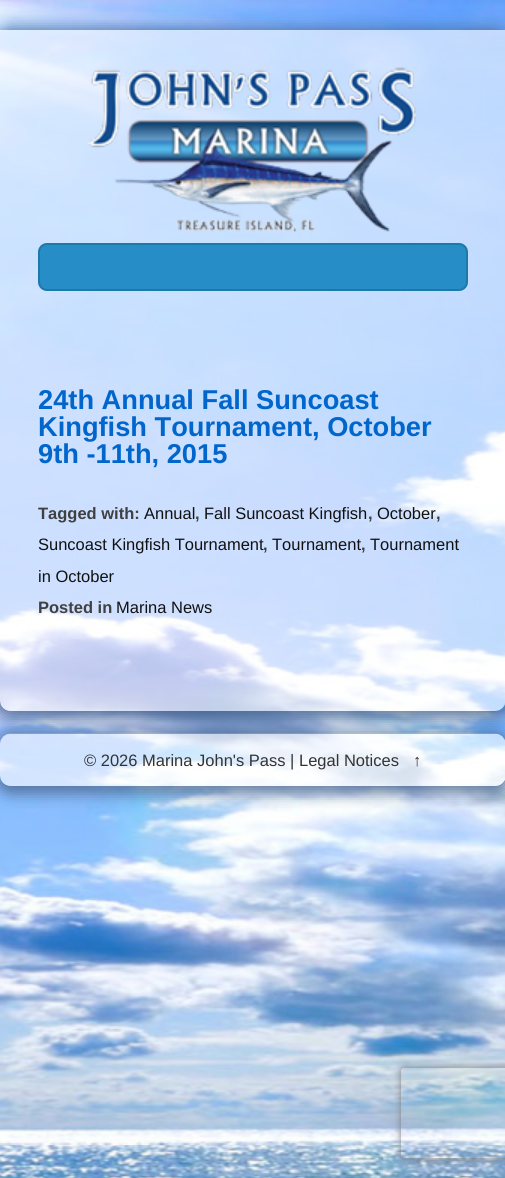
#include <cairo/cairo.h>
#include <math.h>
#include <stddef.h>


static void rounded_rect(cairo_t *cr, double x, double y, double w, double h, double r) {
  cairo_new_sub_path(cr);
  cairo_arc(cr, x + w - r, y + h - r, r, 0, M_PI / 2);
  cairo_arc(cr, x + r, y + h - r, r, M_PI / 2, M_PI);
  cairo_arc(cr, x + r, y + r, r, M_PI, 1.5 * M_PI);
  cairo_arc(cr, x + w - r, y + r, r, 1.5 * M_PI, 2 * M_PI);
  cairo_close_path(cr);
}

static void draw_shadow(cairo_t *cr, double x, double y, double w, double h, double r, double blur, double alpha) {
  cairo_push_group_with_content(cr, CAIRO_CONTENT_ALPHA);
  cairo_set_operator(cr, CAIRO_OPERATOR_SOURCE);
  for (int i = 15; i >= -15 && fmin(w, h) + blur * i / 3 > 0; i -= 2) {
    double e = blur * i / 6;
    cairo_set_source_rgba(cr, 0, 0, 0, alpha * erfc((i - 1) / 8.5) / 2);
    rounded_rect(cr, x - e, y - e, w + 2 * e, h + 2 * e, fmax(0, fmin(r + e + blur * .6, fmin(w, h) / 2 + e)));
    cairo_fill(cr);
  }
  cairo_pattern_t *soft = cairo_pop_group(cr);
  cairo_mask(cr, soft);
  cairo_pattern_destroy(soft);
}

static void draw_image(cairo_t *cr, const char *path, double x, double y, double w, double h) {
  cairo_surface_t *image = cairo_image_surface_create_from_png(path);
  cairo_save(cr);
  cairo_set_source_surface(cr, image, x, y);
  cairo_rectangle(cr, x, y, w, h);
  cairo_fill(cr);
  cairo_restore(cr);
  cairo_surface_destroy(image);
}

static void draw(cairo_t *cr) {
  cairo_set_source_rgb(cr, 1, 1, 1);
  cairo_paint(cr);
  draw_image(cr, "images/1.png", 0, 0, 505, 1178);
  cairo_save(cr);
  cairo_set_fill_rule(cr, CAIRO_FILL_RULE_EVEN_ODD);
  cairo_new_path(cr);
  cairo_move_to(cr, 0, 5);
  cairo_line_to(cr, 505, 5);
  cairo_line_to(cr, 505, 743);
  cairo_line_to(cr, 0, 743);
  cairo_close_path(cr);
  cairo_move_to(cr, 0, 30);
  cairo_line_to(cr, 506, 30);
  cairo_line_to(cr, 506, 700);
  cairo_curve_to(cr, 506, 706, 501, 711, 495, 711);
  cairo_line_to(cr, 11, 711);
  cairo_curve_to(cr, 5, 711, 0, 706, 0, 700);
  cairo_close_path(cr);
  cairo_clip(cr);
  cairo_set_source_rgb(cr, 66 / 255.0, 97 / 255.0, 138 / 255.0);
  draw_shadow(cr, -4, 29, 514, 690, 15, 7.5, 0.8);
  cairo_restore(cr);
  draw_image(cr, "images/2.png", 0, 30, 505, 681);
  draw_image(cr, "images/3.png", 88, 67, 328, 166);
  cairo_set_source_rgb(cr, 38 / 255.0, 141 / 255.0, 198 / 255.0);
  rounded_rect(cr, 39, 244, 428, 46, 8);
  cairo_fill_preserve(cr);
  cairo_set_source_rgb(cr, 28 / 255.0, 121 / 255.0, 169 / 255.0);
  cairo_stroke(cr);
  cairo_save(cr);
  cairo_set_fill_rule(cr, CAIRO_FILL_RULE_EVEN_ODD);
  cairo_new_path(cr);
  cairo_move_to(cr, 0, 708);
  cairo_line_to(cr, 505, 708);
  cairo_line_to(cr, 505, 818);
  cairo_line_to(cr, 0, 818);
  cairo_close_path(cr);
  cairo_move_to(cr, 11, 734);
  cairo_line_to(cr, 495, 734);
  cairo_curve_to(cr, 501, 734, 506, 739, 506, 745);
  cairo_line_to(cr, 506, 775);
  cairo_curve_to(cr, 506, 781, 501, 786, 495, 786);
  cairo_line_to(cr, 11, 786);
  cairo_curve_to(cr, 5, 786, 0, 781, 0, 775);
  cairo_line_to(cr, 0, 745);
  cairo_curve_to(cr, 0, 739, 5, 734, 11, 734);
  cairo_close_path(cr);
  cairo_clip(cr);
  cairo_set_source_rgb(cr, 66 / 255.0, 97 / 255.0, 138 / 255.0);
  draw_shadow(cr, -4, 732, 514, 62, 15, 7.5, 0.8);
  cairo_restore(cr);
  draw_image(cr, "images/4.png", 0, 733, 505, 53);
  cairo_save(cr);
  cairo_set_fill_rule(cr, CAIRO_FILL_RULE_EVEN_ODD);
  cairo_new_path(cr);
  cairo_move_to(cr, 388, 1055);
  cairo_line_to(cr, 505, 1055);
  cairo_line_to(cr, 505, 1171);
  cairo_line_to(cr, 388, 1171);
  cairo_close_path(cr);
  cairo_move_to(cr, 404, 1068);
  cairo_line_to(cr, 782, 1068);
  cairo_curve_to(cr, 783.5, 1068, 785, 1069.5, 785, 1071);
  cairo_line_to(cr, 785, 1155);
  cairo_curve_to(cr, 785, 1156.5, 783.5, 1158, 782, 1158);
  cairo_line_to(cr, 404, 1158);
  cairo_curve_to(cr, 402.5, 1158, 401, 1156.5, 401, 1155);
  cairo_line_to(cr, 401, 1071);
  cairo_curve_to(cr, 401, 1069.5, 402.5, 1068, 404, 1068);
  cairo_close_path(cr);
  cairo_clip(cr);
  cairo_set_source_rgb(cr, 128 / 255.0, 128 / 255.0, 128 / 255.0);
  draw_shadow(cr, 401, 1068, 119, 90, 3, 4, 1);
  cairo_restore(cr);
  cairo_select_font_face(cr, "Liberation Sans", CAIRO_FONT_SLANT_NORMAL, CAIRO_FONT_WEIGHT_BOLD);
  cairo_set_font_size(cr, 27.25);
  cairo_set_source_rgb(cr, 0, 102 / 255.0, 204 / 255.0);
  cairo_move_to(cr, 38, 409);
  cairo_show_text(cr, "24th Annual Fall Suncoast");
  cairo_move_to(cr, 38, 436);
  cairo_show_text(cr, "Kingfish Tournament, October");
  cairo_move_to(cr, 38, 463);
  cairo_show_text(cr, "9th -11th, 2015");
  cairo_set_font_size(cr, 16.5);
  cairo_set_source_rgb(cr, 64 / 255.0, 64 / 255.0, 64 / 255.0);
  cairo_move_to(cr, 38, 519);
  cairo_show_text(cr, "Tagged with:");
  cairo_select_font_face(cr, "Liberation Sans", CAIRO_FONT_SLANT_NORMAL, CAIRO_FONT_WEIGHT_NORMAL);
  cairo_set_source_rgb(cr, 17 / 255.0, 17 / 255.0, 17 / 255.0);
  cairo_move_to(cr, 144, 519);
  cairo_show_text(cr, "Annual");
  cairo_select_font_face(cr, "Liberation Sans", CAIRO_FONT_SLANT_NORMAL, CAIRO_FONT_WEIGHT_BOLD);
  cairo_set_source_rgb(cr, 64 / 255.0, 64 / 255.0, 64 / 255.0);
  cairo_move_to(cr, 195, 519);
  cairo_show_text(cr, ",");
  cairo_select_font_face(cr, "Liberation Sans", CAIRO_FONT_SLANT_NORMAL, CAIRO_FONT_WEIGHT_NORMAL);
  cairo_set_source_rgb(cr, 17 / 255.0, 17 / 255.0, 17 / 255.0);
  cairo_move_to(cr, 204, 519);
  cairo_show_text(cr, "Fall Suncoast Kingfish");
  cairo_select_font_face(cr, "Liberation Sans", CAIRO_FONT_SLANT_NORMAL, CAIRO_FONT_WEIGHT_BOLD);
  cairo_set_source_rgb(cr, 64 / 255.0, 64 / 255.0, 64 / 255.0);
  cairo_move_to(cr, 368, 519);
  cairo_show_text(cr, ",");
  cairo_select_font_face(cr, "Liberation Sans", CAIRO_FONT_SLANT_NORMAL, CAIRO_FONT_WEIGHT_NORMAL);
  cairo_set_source_rgb(cr, 17 / 255.0, 17 / 255.0, 17 / 255.0);
  cairo_move_to(cr, 377, 519);
  cairo_show_text(cr, "October");
  cairo_select_font_face(cr, "Liberation Sans", CAIRO_FONT_SLANT_NORMAL, CAIRO_FONT_WEIGHT_BOLD);
  cairo_set_source_rgb(cr, 64 / 255.0, 64 / 255.0, 64 / 255.0);
  cairo_move_to(cr, 436, 519);
  cairo_show_text(cr, ",");
  cairo_select_font_face(cr, "Liberation Sans", CAIRO_FONT_SLANT_NORMAL, CAIRO_FONT_WEIGHT_NORMAL);
  cairo_set_source_rgb(cr, 17 / 255.0, 17 / 255.0, 17 / 255.0);
  cairo_move_to(cr, 38, 550);
  cairo_show_text(cr, "Suncoast Kingfish Tournament");
  cairo_select_font_face(cr, "Liberation Sans", CAIRO_FONT_SLANT_NORMAL, CAIRO_FONT_WEIGHT_BOLD);
  cairo_set_source_rgb(cr, 64 / 255.0, 64 / 255.0, 64 / 255.0);
  cairo_move_to(cr, 263, 550);
  cairo_show_text(cr, ",");
  cairo_select_font_face(cr, "Liberation Sans", CAIRO_FONT_SLANT_NORMAL, CAIRO_FONT_WEIGHT_NORMAL);
  cairo_set_source_rgb(cr, 17 / 255.0, 17 / 255.0, 17 / 255.0);
  cairo_move_to(cr, 272, 550);
  cairo_show_text(cr, "Tournament");
  cairo_select_font_face(cr, "Liberation Sans", CAIRO_FONT_SLANT_NORMAL, CAIRO_FONT_WEIGHT_BOLD);
  cairo_set_source_rgb(cr, 64 / 255.0, 64 / 255.0, 64 / 255.0);
  cairo_move_to(cr, 361, 550);
  cairo_show_text(cr, ",");
  cairo_select_font_face(cr, "Liberation Sans", CAIRO_FONT_SLANT_NORMAL, CAIRO_FONT_WEIGHT_NORMAL);
  cairo_set_source_rgb(cr, 17 / 255.0, 17 / 255.0, 17 / 255.0);
  cairo_move_to(cr, 370, 550);
  cairo_show_text(cr, "Tournament");
  cairo_move_to(cr, 38, 582);
  cairo_show_text(cr, "in October");
  cairo_select_font_face(cr, "Liberation Sans", CAIRO_FONT_SLANT_NORMAL, CAIRO_FONT_WEIGHT_BOLD);
  cairo_set_source_rgb(cr, 64 / 255.0, 64 / 255.0, 64 / 255.0);
  cairo_move_to(cr, 38, 613);
  cairo_show_text(cr, "Posted in");
  cairo_select_font_face(cr, "Liberation Sans", CAIRO_FONT_SLANT_NORMAL, CAIRO_FONT_WEIGHT_NORMAL);
  cairo_set_source_rgb(cr, 17 / 255.0, 17 / 255.0, 17 / 255.0);
  cairo_move_to(cr, 116, 613);
  cairo_show_text(cr, "Marina News");
  cairo_set_source_rgb(cr, 51 / 255.0, 51 / 255.0, 51 / 255.0);
  cairo_move_to(cr, 84, 766);
  cairo_show_text(cr, "© 2026 Marina John's Pass | Legal Notices");
  cairo_move_to(cr, 413, 766);
  cairo_show_text(cr, "↑");
}

int main(void) {
  cairo_surface_t *surface = cairo_image_surface_create(CAIRO_FORMAT_RGB24, 505, 1178);
  cairo_t *cr = cairo_create(surface);
  cairo_font_options_t *options = cairo_font_options_create();
  cairo_font_options_set_hint_metrics(options, CAIRO_HINT_METRICS_OFF);
  cairo_font_options_set_hint_style(options, CAIRO_HINT_STYLE_NONE);
  cairo_set_font_options(cr, options);
  cairo_set_miter_limit(cr, 4);
  draw(cr);
  cairo_surface_write_to_png(surface, "out.png");
  cairo_font_options_destroy(options);
  cairo_destroy(cr);
  cairo_surface_destroy(surface);
  return 0;
}
